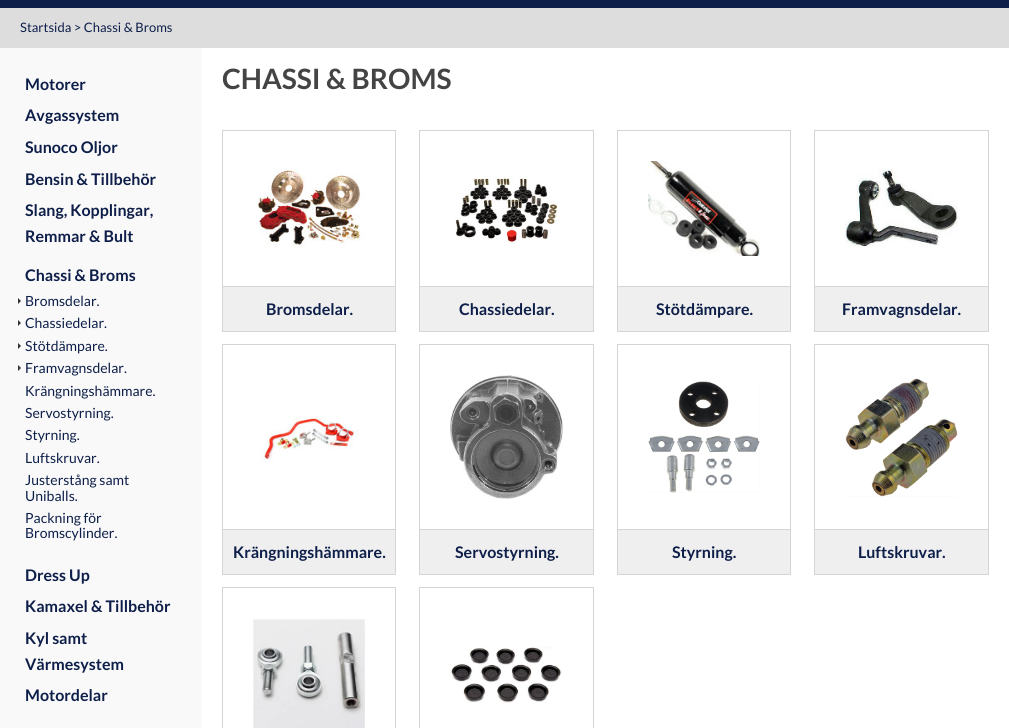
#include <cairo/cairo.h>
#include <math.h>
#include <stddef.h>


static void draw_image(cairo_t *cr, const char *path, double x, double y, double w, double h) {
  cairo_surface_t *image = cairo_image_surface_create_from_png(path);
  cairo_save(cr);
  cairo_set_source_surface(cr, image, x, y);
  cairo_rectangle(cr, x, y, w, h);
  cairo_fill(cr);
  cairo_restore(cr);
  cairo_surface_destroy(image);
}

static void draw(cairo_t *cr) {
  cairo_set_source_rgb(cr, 221 / 255.0, 221 / 255.0, 221 / 255.0);
  cairo_paint(cr);
  cairo_set_source_rgb(cr, 13 / 255.0, 30 / 255.0, 73 / 255.0);
  cairo_rectangle(cr, 0, 0, 1009, 8);
  cairo_fill(cr);
  cairo_set_source_rgb(cr, 249 / 255.0, 249 / 255.0, 249 / 255.0);
  cairo_rectangle(cr, 0, 48, 202, 680);
  cairo_fill(cr);
  cairo_set_source_rgb(cr, 51 / 255.0, 51 / 255.0, 51 / 255.0);
  cairo_new_path(cr);
  cairo_move_to(cr, 18, 304);
  cairo_line_to(cr, 18, 298);
  cairo_line_to(cr, 21, 301);
  cairo_close_path(cr);
  cairo_fill(cr);
  cairo_new_path(cr);
  cairo_move_to(cr, 18, 326);
  cairo_line_to(cr, 18, 320);
  cairo_line_to(cr, 21, 323);
  cairo_close_path(cr);
  cairo_fill(cr);
  cairo_new_path(cr);
  cairo_move_to(cr, 18, 349);
  cairo_line_to(cr, 18, 343);
  cairo_line_to(cr, 21, 346);
  cairo_close_path(cr);
  cairo_fill(cr);
  cairo_new_path(cr);
  cairo_move_to(cr, 18, 371);
  cairo_line_to(cr, 18, 365);
  cairo_line_to(cr, 21, 368);
  cairo_close_path(cr);
  cairo_fill(cr);
  cairo_set_source_rgb(cr, 1, 1, 1);
  cairo_rectangle(cr, 202, 48, 807, 680);
  cairo_fill(cr);
  cairo_rectangle(cr, 222.5, 130.5, 173, 201);
  cairo_set_source_rgb(cr, 214 / 255.0, 213 / 255.0, 213 / 255.0);
  cairo_set_line_width(cr, 1);
  cairo_stroke(cr);
  draw_image(cr, "images/1.png", 256, 168, 108, 80);
  cairo_set_source_rgb(cr, 239 / 255.0, 239 / 255.0, 239 / 255.0);
  cairo_rectangle(cr, 223, 287, 172, 44);
  cairo_fill(cr);
  cairo_set_source_rgb(cr, 214 / 255.0, 213 / 255.0, 213 / 255.0);
  cairo_rectangle(cr, 223, 286, 172, 1);
  cairo_fill(cr);
  cairo_rectangle(cr, 419.5, 130.5, 174, 201);
  cairo_stroke(cr);
  draw_image(cr, "images/2.png", 455, 175, 103, 68);
  cairo_set_source_rgb(cr, 239 / 255.0, 239 / 255.0, 239 / 255.0);
  cairo_rectangle(cr, 420, 287, 173, 44);
  cairo_fill(cr);
  cairo_set_source_rgb(cr, 214 / 255.0, 213 / 255.0, 213 / 255.0);
  cairo_rectangle(cr, 420, 286, 173, 1);
  cairo_fill(cr);
  cairo_rectangle(cr, 617.5, 130.5, 173, 201);
  cairo_stroke(cr);
  draw_image(cr, "images/3.png", 648, 161, 112, 95);
  cairo_set_source_rgb(cr, 239 / 255.0, 239 / 255.0, 239 / 255.0);
  cairo_rectangle(cr, 618, 287, 172, 44);
  cairo_fill(cr);
  cairo_set_source_rgb(cr, 214 / 255.0, 213 / 255.0, 213 / 255.0);
  cairo_rectangle(cr, 618, 286, 172, 1);
  cairo_fill(cr);
  cairo_rectangle(cr, 814.5, 130.5, 174, 201);
  cairo_stroke(cr);
  draw_image(cr, "images/4.png", 845, 168, 113, 80);
  cairo_set_source_rgb(cr, 239 / 255.0, 239 / 255.0, 239 / 255.0);
  cairo_rectangle(cr, 815, 287, 173, 44);
  cairo_fill(cr);
  cairo_set_source_rgb(cr, 214 / 255.0, 213 / 255.0, 213 / 255.0);
  cairo_rectangle(cr, 815, 286, 173, 1);
  cairo_fill(cr);
  cairo_rectangle(cr, 222.5, 344.5, 173, 230);
  cairo_stroke(cr);
  draw_image(cr, "images/5.png", 260, 416, 99, 47);
  cairo_set_source_rgb(cr, 239 / 255.0, 239 / 255.0, 239 / 255.0);
  cairo_rectangle(cr, 223, 530, 172, 44);
  cairo_fill(cr);
  cairo_set_source_rgb(cr, 214 / 255.0, 213 / 255.0, 213 / 255.0);
  cairo_rectangle(cr, 223, 529, 172, 1);
  cairo_fill(cr);
  cairo_rectangle(cr, 419.5, 344.5, 174, 230);
  cairo_stroke(cr);
  draw_image(cr, "images/6.png", 450, 375, 113, 124);
  cairo_set_source_rgb(cr, 239 / 255.0, 239 / 255.0, 239 / 255.0);
  cairo_rectangle(cr, 420, 530, 173, 44);
  cairo_fill(cr);
  cairo_set_source_rgb(cr, 214 / 255.0, 213 / 255.0, 213 / 255.0);
  cairo_rectangle(cr, 420, 529, 173, 1);
  cairo_fill(cr);
  cairo_rectangle(cr, 617.5, 344.5, 173, 230);
  cairo_stroke(cr);
  draw_image(cr, "images/7.png", 648, 381, 112, 112);
  cairo_set_source_rgb(cr, 239 / 255.0, 239 / 255.0, 239 / 255.0);
  cairo_rectangle(cr, 618, 530, 172, 44);
  cairo_fill(cr);
  cairo_set_source_rgb(cr, 214 / 255.0, 213 / 255.0, 213 / 255.0);
  cairo_rectangle(cr, 618, 529, 172, 1);
  cairo_fill(cr);
  cairo_rectangle(cr, 814.5, 344.5, 174, 230);
  cairo_stroke(cr);
  draw_image(cr, "images/8.png", 845, 378, 113, 119);
  cairo_set_source_rgb(cr, 239 / 255.0, 239 / 255.0, 239 / 255.0);
  cairo_rectangle(cr, 815, 530, 173, 44);
  cairo_fill(cr);
  cairo_set_source_rgb(cr, 214 / 255.0, 213 / 255.0, 213 / 255.0);
  cairo_rectangle(cr, 815, 529, 173, 1);
  cairo_fill(cr);
  cairo_rectangle(cr, 222.5, 587.5, 173, 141);
  cairo_stroke(cr);
  draw_image(cr, "images/9.png", 253, 619, 112, 109);
  cairo_rectangle(cr, 419.5, 587.5, 174, 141);
  cairo_stroke(cr);
  draw_image(cr, "images/10.png", 450, 646, 112, 57);
  cairo_select_font_face(cr, "Lato", CAIRO_FONT_SLANT_NORMAL, CAIRO_FONT_WEIGHT_NORMAL);
  cairo_set_font_size(cr, 13);
  cairo_set_source_rgb(cr, 13 / 255.0, 30 / 255.0, 73 / 255.0);
  cairo_move_to(cr, 20, 32);
  cairo_show_text(cr, "Startsida > Chassi & Broms");
  cairo_select_font_face(cr, "Lato", CAIRO_FONT_SLANT_NORMAL, CAIRO_FONT_WEIGHT_BOLD);
  cairo_set_font_size(cr, 16);
  cairo_move_to(cr, 25, 90);
  cairo_show_text(cr, "Motorer");
  cairo_move_to(cr, 25, 121);
  cairo_show_text(cr, "Avgassystem");
  cairo_move_to(cr, 25, 153);
  cairo_show_text(cr, "Sunoco Oljor");
  cairo_move_to(cr, 25, 185);
  cairo_show_text(cr, "Bensin & Tillbehör");
  cairo_move_to(cr, 25, 216);
  cairo_show_text(cr, "Slang, Kopplingar,");
  cairo_move_to(cr, 25, 242);
  cairo_show_text(cr, "Remmar & Bult");
  cairo_move_to(cr, 25, 281);
  cairo_show_text(cr, "Chassi & Broms");
  cairo_select_font_face(cr, "Lato", CAIRO_FONT_SLANT_NORMAL, CAIRO_FONT_WEIGHT_NORMAL);
  cairo_set_font_size(cr, 14);
  cairo_move_to(cr, 25, 306);
  cairo_show_text(cr, "Bromsdelar.");
  cairo_move_to(cr, 25, 328);
  cairo_show_text(cr, "Chassiedelar.");
  cairo_move_to(cr, 25, 351);
  cairo_show_text(cr, "Stötdämpare.");
  cairo_move_to(cr, 25, 373);
  cairo_show_text(cr, "Framvagnsdelar.");
  cairo_move_to(cr, 25, 396);
  cairo_show_text(cr, "Krängningshämmare.");
  cairo_move_to(cr, 25, 418);
  cairo_show_text(cr, "Servostyrning.");
  cairo_move_to(cr, 25, 440);
  cairo_show_text(cr, "Styrning.");
  cairo_move_to(cr, 25, 463);
  cairo_show_text(cr, "Luftskruvar.");
  cairo_move_to(cr, 25, 485);
  cairo_show_text(cr, "Justerstång samt");
  cairo_move_to(cr, 25, 501);
  cairo_show_text(cr, "Uniballs.");
  cairo_move_to(cr, 25, 523);
  cairo_show_text(cr, "Packning för");
  cairo_move_to(cr, 25, 538);
  cairo_show_text(cr, "Bromscylinder.");
  cairo_select_font_face(cr, "Lato", CAIRO_FONT_SLANT_NORMAL, CAIRO_FONT_WEIGHT_BOLD);
  cairo_set_font_size(cr, 16);
  cairo_move_to(cr, 25, 581);
  cairo_show_text(cr, "Dress Up");
  cairo_move_to(cr, 25, 612);
  cairo_show_text(cr, "Kamaxel & Tillbehör");
  cairo_move_to(cr, 25, 644);
  cairo_show_text(cr, "Kyl samt");
  cairo_move_to(cr, 25, 670);
  cairo_show_text(cr, "Värmesystem");
  cairo_move_to(cr, 25, 701);
  cairo_show_text(cr, "Motordelar");
  cairo_set_font_size(cr, 28);
  cairo_set_source_rgb(cr, 68 / 255.0, 68 / 255.0, 68 / 255.0);
  cairo_move_to(cr, 222, 89);
  cairo_show_text(cr, "CHASSI & BROMS");
  cairo_set_font_size(cr, 16);
  cairo_set_source_rgb(cr, 13 / 255.0, 30 / 255.0, 73 / 255.0);
  cairo_move_to(cr, 266, 315);
  cairo_show_text(cr, "Bromsdelar.");
  cairo_move_to(cr, 459, 315);
  cairo_show_text(cr, "Chassiedelar.");
  cairo_move_to(cr, 656, 315);
  cairo_show_text(cr, "Stötdämpare.");
  cairo_move_to(cr, 842, 315);
  cairo_show_text(cr, "Framvagnsdelar.");
  cairo_move_to(cr, 233, 558);
  cairo_show_text(cr, "Krängningshämmare.");
  cairo_move_to(cr, 455, 558);
  cairo_show_text(cr, "Servostyrning.");
  cairo_move_to(cr, 672, 558);
  cairo_show_text(cr, "Styrning.");
  cairo_move_to(cr, 858, 558);
  cairo_show_text(cr, "Luftskruvar.");
}

int main(void) {
  cairo_surface_t *surface = cairo_image_surface_create(CAIRO_FORMAT_RGB24, 1009, 728);
  cairo_t *cr = cairo_create(surface);
  cairo_font_options_t *options = cairo_font_options_create();
  cairo_font_options_set_hint_metrics(options, CAIRO_HINT_METRICS_OFF);
  cairo_font_options_set_hint_style(options, CAIRO_HINT_STYLE_NONE);
  cairo_set_font_options(cr, options);
  cairo_set_miter_limit(cr, 4);
  draw(cr);
  cairo_surface_write_to_png(surface, "out.png");
  cairo_font_options_destroy(options);
  cairo_destroy(cr);
  cairo_surface_destroy(surface);
  return 0;
}
